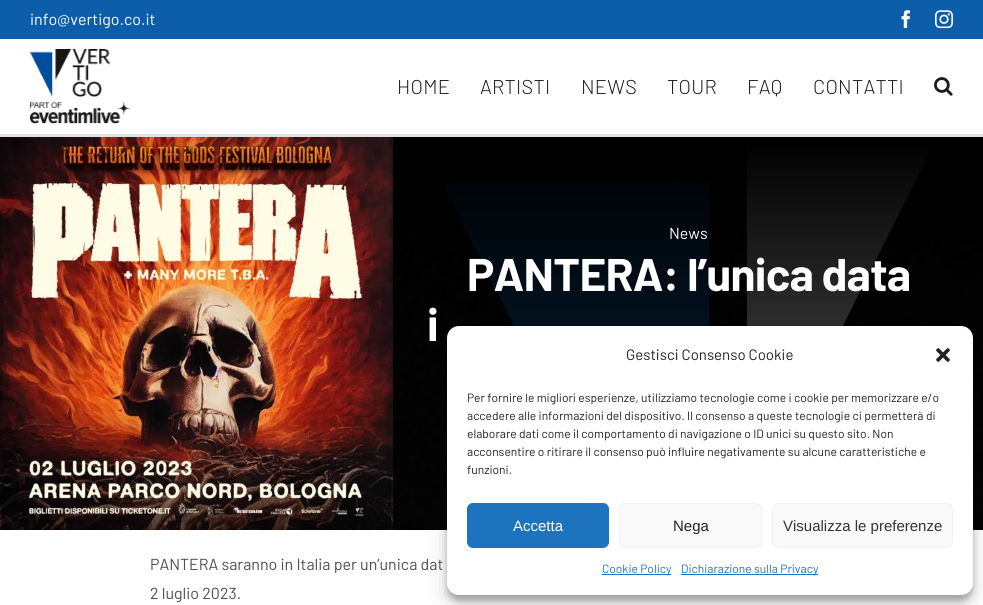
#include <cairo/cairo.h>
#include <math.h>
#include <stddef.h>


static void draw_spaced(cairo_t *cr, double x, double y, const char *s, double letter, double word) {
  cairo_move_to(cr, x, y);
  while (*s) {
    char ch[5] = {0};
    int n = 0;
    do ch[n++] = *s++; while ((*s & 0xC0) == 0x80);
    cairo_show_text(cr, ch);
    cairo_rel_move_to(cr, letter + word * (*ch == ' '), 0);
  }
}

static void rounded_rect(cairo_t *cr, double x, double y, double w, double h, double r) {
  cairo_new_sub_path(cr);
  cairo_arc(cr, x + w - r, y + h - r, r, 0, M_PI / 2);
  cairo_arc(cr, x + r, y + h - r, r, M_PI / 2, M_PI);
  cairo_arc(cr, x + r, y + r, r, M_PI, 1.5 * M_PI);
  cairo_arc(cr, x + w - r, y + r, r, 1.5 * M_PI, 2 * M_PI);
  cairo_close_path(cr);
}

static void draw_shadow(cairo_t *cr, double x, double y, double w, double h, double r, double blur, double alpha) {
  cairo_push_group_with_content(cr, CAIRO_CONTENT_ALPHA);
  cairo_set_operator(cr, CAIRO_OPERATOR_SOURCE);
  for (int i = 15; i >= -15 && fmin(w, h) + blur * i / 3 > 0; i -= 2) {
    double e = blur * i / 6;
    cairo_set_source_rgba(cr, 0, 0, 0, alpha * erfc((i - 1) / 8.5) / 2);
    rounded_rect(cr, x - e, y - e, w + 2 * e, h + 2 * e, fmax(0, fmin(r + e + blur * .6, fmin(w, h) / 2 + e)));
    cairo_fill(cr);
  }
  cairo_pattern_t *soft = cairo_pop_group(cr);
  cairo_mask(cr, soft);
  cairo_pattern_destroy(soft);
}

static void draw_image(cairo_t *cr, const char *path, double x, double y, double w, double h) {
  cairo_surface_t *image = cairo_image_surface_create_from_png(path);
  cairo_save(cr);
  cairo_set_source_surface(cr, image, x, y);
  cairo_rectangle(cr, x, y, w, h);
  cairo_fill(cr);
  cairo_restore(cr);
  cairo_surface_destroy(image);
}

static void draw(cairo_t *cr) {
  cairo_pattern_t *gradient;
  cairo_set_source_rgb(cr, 1, 1, 1);
  cairo_paint(cr);
  draw_image(cr, "images/1.png", 393, 143, 590, 387);
  cairo_set_source_rgb(cr, 12 / 255.0, 94 / 255.0, 170 / 255.0);
  cairo_rectangle(cr, 0, 0, 983, 39);
  cairo_fill(cr);
  draw_image(cr, "images/2.png", 901, 10, 9, 18);
  draw_image(cr, "images/3.png", 935, 10, 18, 18);
  cairo_set_source_rgb(cr, 226 / 255.0, 226 / 255.0, 226 / 255.0);
  cairo_rectangle(cr, 0, 134, 983, 3);
  cairo_fill(cr);
  draw_image(cr, "images/4.png", 30, 49, 100, 75);
  draw_image(cr, "images/5.png", 934, 77, 19, 19);
  draw_image(cr, "images/6.png", 0, 137, 393, 393);
  cairo_save(cr);
  cairo_rectangle(cr, 393, 137, 590, 393);
  cairo_clip(cr);
  cairo_set_source_rgb(cr, 12 / 255.0, 94 / 255.0, 170 / 255.0);
  cairo_new_path(cr);
  cairo_move_to(cr, 442, 182);
  cairo_line_to(cr, 709, 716);
  cairo_line_to(cr, 709, 182);
  cairo_close_path(cr);
  cairo_fill(cr);
  cairo_restore(cr);
  cairo_set_source_rgb(cr, 1, 1, 1);
  cairo_new_path(cr);
  cairo_move_to(cr, 934, 144);
  cairo_line_to(cr, 747, 517);
  cairo_line_to(cr, 747, 144);
  cairo_close_path(cr);
  cairo_fill(cr);
  gradient = cairo_pattern_create_linear(688, 137, 688, 530);
  cairo_pattern_add_color_stop_rgba(gradient, 0, 0, 0, 0, 1);
  cairo_pattern_add_color_stop_rgba(gradient, 1, 0, 0, 0, 0.63);
  cairo_set_source(cr, gradient);
  cairo_pattern_destroy(gradient);
  cairo_rectangle(cr, 393, 137, 590, 393);
  cairo_fill(cr);
  cairo_set_source_rgb(cr, 0, 0, 0);
  draw_shadow(cr, 447, 332, 526, 269, 12, 3, 0.23);
  draw_shadow(cr, 447, 336, 526, 269, 12, 10, 0.19);
  cairo_set_source_rgb(cr, 1, 1, 1);
  rounded_rect(cr, 447, 326, 526, 269, 12);
  cairo_fill(cr);
  draw_image(cr, "images/7.png", 936, 348, 14, 14);
  cairo_set_source_rgb(cr, 30 / 255.0, 115 / 255.0, 190 / 255.0);
  rounded_rect(cr, 467.5, 503.5, 141, 44, 5.5);
  cairo_fill_preserve(cr);
  cairo_set_line_width(cr, 1);
  cairo_stroke(cr);
  cairo_set_source_rgb(cr, 249 / 255.0, 249 / 255.0, 249 / 255.0);
  rounded_rect(cr, 619.5, 503.5, 142, 44, 5.5);
  cairo_fill_preserve(cr);
  cairo_set_source_rgb(cr, 242 / 255.0, 242 / 255.0, 242 / 255.0);
  cairo_stroke(cr);
  cairo_set_source_rgb(cr, 249 / 255.0, 249 / 255.0, 249 / 255.0);
  rounded_rect(cr, 772.5, 503.5, 180, 44, 5.5);
  cairo_fill_preserve(cr);
  cairo_set_source_rgb(cr, 242 / 255.0, 242 / 255.0, 242 / 255.0);
  cairo_stroke(cr);
  cairo_set_source_rgb(cr, 30 / 255.0, 115 / 255.0, 190 / 255.0);
  cairo_rectangle(cr, 602, 574, 69, 1);
  cairo_fill(cr);
  cairo_rectangle(cr, 681, 574, 137, 1);
  cairo_fill(cr);
  cairo_select_font_face(cr, "Barlow", CAIRO_FONT_SLANT_NORMAL, CAIRO_FONT_WEIGHT_NORMAL);
  cairo_set_font_size(cr, 16);
  cairo_set_source_rgb(cr, 1, 1, 1);
  cairo_move_to(cr, 30, 25);
  cairo_show_text(cr, "info@vertigo.co.it");
  cairo_select_font_face(cr, "Barlow Light", CAIRO_FONT_SLANT_NORMAL, CAIRO_FONT_WEIGHT_NORMAL);
  cairo_set_font_size(cr, 20);
  cairo_set_source_rgb(cr, 29 / 255.0, 29 / 255.0, 27 / 255.0);
  draw_spaced(cr, 397, 94, "HOME", 0.25, 0);
  draw_spaced(cr, 480, 94, "ARTISTI", 0.25, 0);
  draw_spaced(cr, 581, 94, "NEWS", 0.25, 0);
  draw_spaced(cr, 667, 94, "TOUR", 0.25, 0);
  draw_spaced(cr, 747, 94, "FAQ", 0.25, 0);
  draw_spaced(cr, 813, 94, "CONTATTI", 0.25, 0);
  cairo_select_font_face(cr, "Barlow", CAIRO_FONT_SLANT_NORMAL, CAIRO_FONT_WEIGHT_NORMAL);
  cairo_set_font_size(cr, 16);
  cairo_set_source_rgb(cr, 1, 1, 1);
  cairo_move_to(cr, 669, 239);
  cairo_show_text(cr, "News");
  cairo_select_font_face(cr, "Barlow", CAIRO_FONT_SLANT_NORMAL, CAIRO_FONT_WEIGHT_BOLD);
  cairo_set_font_size(cr, 45.75);
  draw_spaced(cr, 467, 291, "PANTERA: l’unica data", -0.7, 0);
  draw_spaced(cr, 427, 341, "i", -0.7, 0);
  cairo_select_font_face(cr, "Barlow", CAIRO_FONT_SLANT_NORMAL, CAIRO_FONT_WEIGHT_NORMAL);
  cairo_set_font_size(cr, 16);
  cairo_set_source_rgb(cr, 74 / 255.0, 78 / 255.0, 87 / 255.0);
  cairo_move_to(cr, 150, 570);
  cairo_show_text(cr, "PANTERA saranno in Italia per un’unica dat");
  cairo_move_to(cr, 150, 599);
  cairo_show_text(cr, "2 luglio 2023.");
  cairo_set_font_size(cr, 15);
  cairo_set_source_rgb(cr, 34 / 255.0, 34 / 255.0, 34 / 255.0);
  cairo_move_to(cr, 626, 360);
  cairo_show_text(cr, "Gestisci Consenso Cookie");
  cairo_set_font_size(cr, 12);
  cairo_move_to(cr, 467, 402);
  cairo_show_text(cr, "Per fornire le migliori esperienze, utilizziamo tecnologie come i cookie per memorizzare e/o");
  cairo_move_to(cr, 467, 420);
  cairo_show_text(cr, "accedere alle informazioni del dispositivo. Il consenso a queste tecnologie ci permetterà di");
  cairo_move_to(cr, 467, 438);
  cairo_show_text(cr, "elaborare dati come il comportamento di navigazione o ID unici su questo sito. Non");
  cairo_move_to(cr, 467, 456);
  cairo_show_text(cr, "acconsentire o ritirare il consenso può influire negativamente su alcune caratteristiche e");
  cairo_move_to(cr, 467, 474);
  cairo_show_text(cr, "funzioni.");
  cairo_select_font_face(cr, "Liberation Sans", CAIRO_FONT_SLANT_NORMAL, CAIRO_FONT_WEIGHT_NORMAL);
  cairo_set_font_size(cr, 15);
  cairo_set_source_rgb(cr, 1, 1, 1);
  cairo_move_to(cr, 513, 531);
  cairo_show_text(cr, "Accetta");
  cairo_set_source_rgb(cr, 34 / 255.0, 34 / 255.0, 34 / 255.0);
  cairo_move_to(cr, 673, 531);
  cairo_show_text(cr, "Nega");
  cairo_set_source_rgb(cr, 51 / 255.0, 51 / 255.0, 51 / 255.0);
  cairo_move_to(cr, 783, 531);
  cairo_show_text(cr, "Visualizza le preferenze");
  cairo_select_font_face(cr, "Barlow", CAIRO_FONT_SLANT_NORMAL, CAIRO_FONT_WEIGHT_NORMAL);
  cairo_set_font_size(cr, 12);
  cairo_set_source_rgb(cr, 30 / 255.0, 115 / 255.0, 190 / 255.0);
  cairo_move_to(cr, 602, 573);
  cairo_show_text(cr, "Cookie Policy");
  cairo_move_to(cr, 681, 573);
  cairo_show_text(cr, "Dichiarazione sulla Privacy");
}

int main(void) {
  cairo_surface_t *surface = cairo_image_surface_create(CAIRO_FORMAT_RGB24, 983, 605);
  cairo_t *cr = cairo_create(surface);
  cairo_font_options_t *options = cairo_font_options_create();
  cairo_font_options_set_hint_metrics(options, CAIRO_HINT_METRICS_OFF);
  cairo_font_options_set_hint_style(options, CAIRO_HINT_STYLE_NONE);
  cairo_set_font_options(cr, options);
  cairo_set_miter_limit(cr, 4);
  draw(cr);
  cairo_surface_write_to_png(surface, "out.png");
  cairo_font_options_destroy(options);
  cairo_destroy(cr);
  cairo_surface_destroy(surface);
  return 0;
}
